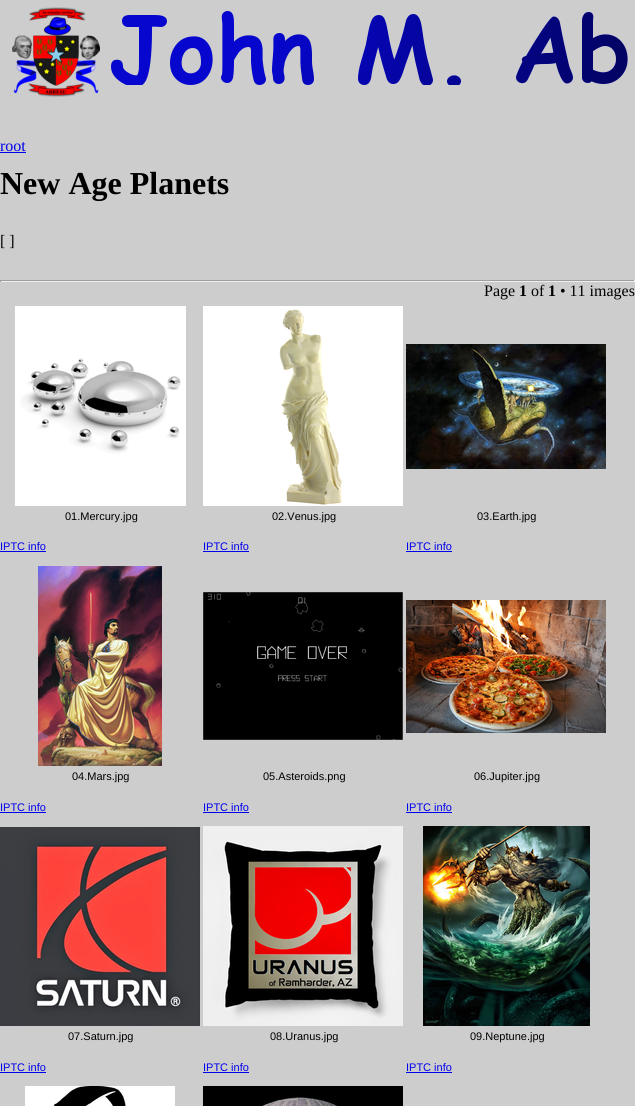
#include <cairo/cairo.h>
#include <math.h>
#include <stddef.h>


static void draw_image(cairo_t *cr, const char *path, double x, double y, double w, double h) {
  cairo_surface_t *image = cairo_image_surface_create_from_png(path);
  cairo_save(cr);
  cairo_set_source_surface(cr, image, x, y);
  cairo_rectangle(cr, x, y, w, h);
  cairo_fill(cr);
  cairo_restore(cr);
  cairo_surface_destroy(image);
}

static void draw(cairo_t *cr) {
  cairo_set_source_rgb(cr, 205 / 255.0, 205 / 255.0, 205 / 255.0);
  cairo_paint(cr);
  draw_image(cr, "images/1.png", 12, 7, 616, 90);
  cairo_set_source_rgb(cr, 0, 0, 238 / 255.0);
  cairo_rectangle(cr, 0, 152, 26, 1);
  cairo_fill(cr);
  cairo_set_source_rgb(cr, 159 / 255.0, 159 / 255.0, 159 / 255.0);
  cairo_rectangle(cr, 0, 280, 635, 1);
  cairo_fill(cr);
  cairo_set_source_rgb(cr, 238 / 255.0, 238 / 255.0, 238 / 255.0);
  cairo_rectangle(cr, 634, 280, 1, 2);
  cairo_fill(cr);
  cairo_rectangle(cr, 0, 281, 635, 1);
  cairo_fill(cr);
  cairo_set_source_rgb(cr, 159 / 255.0, 159 / 255.0, 159 / 255.0);
  cairo_rectangle(cr, 0, 280, 1, 2);
  cairo_fill(cr);
  draw_image(cr, "images/2.png", 15, 306, 171, 200);
  cairo_set_source_rgb(cr, 0, 0, 238 / 255.0);
  cairo_rectangle(cr, 0, 551, 46, 1);
  cairo_fill(cr);
  draw_image(cr, "images/3.png", 203, 306, 200, 200);
  cairo_rectangle(cr, 203, 551, 46, 1);
  cairo_fill(cr);
  draw_image(cr, "images/4.png", 406, 344, 200, 125);
  cairo_rectangle(cr, 406, 551, 46, 1);
  cairo_fill(cr);
  draw_image(cr, "images/5.png", 38, 566, 124, 200);
  cairo_rectangle(cr, 0, 812, 46, 1);
  cairo_fill(cr);
  draw_image(cr, "images/6.png", 203, 592, 200, 148);
  cairo_rectangle(cr, 203, 812, 46, 1);
  cairo_fill(cr);
  draw_image(cr, "images/7.png", 406, 600, 200, 133);
  cairo_rectangle(cr, 406, 812, 46, 1);
  cairo_fill(cr);
  draw_image(cr, "images/8.png", 0, 827, 200, 199);
  cairo_rectangle(cr, 0, 1072, 46, 1);
  cairo_fill(cr);
  draw_image(cr, "images/9.png", 203, 826, 200, 200);
  cairo_rectangle(cr, 203, 1072, 46, 1);
  cairo_fill(cr);
  draw_image(cr, "images/10.png", 423, 826, 167, 200);
  cairo_rectangle(cr, 406, 1072, 46, 1);
  cairo_fill(cr);
  draw_image(cr, "images/11.png", 25, 1086, 150, 20);
  draw_image(cr, "images/12.png", 203, 1086, 200, 20);
  cairo_select_font_face(cr, "Liberation Serif", CAIRO_FONT_SLANT_NORMAL, CAIRO_FONT_WEIGHT_NORMAL);
  cairo_set_font_size(cr, 16);
  cairo_move_to(cr, 0, 151);
  cairo_show_text(cr, "root");
  cairo_select_font_face(cr, "Liberation Serif", CAIRO_FONT_SLANT_NORMAL, CAIRO_FONT_WEIGHT_BOLD);
  cairo_set_font_size(cr, 32);
  cairo_set_source_rgb(cr, 0, 0, 0);
  cairo_move_to(cr, 0, 194);
  cairo_show_text(cr, "New Age Planets");
  cairo_select_font_face(cr, "Liberation Serif", CAIRO_FONT_SLANT_NORMAL, CAIRO_FONT_WEIGHT_NORMAL);
  cairo_set_font_size(cr, 16);
  cairo_move_to(cr, 0, 246);
  cairo_show_text(cr, "[ ]");
  cairo_move_to(cr, 484, 296);
  cairo_show_text(cr, "Page");
  cairo_select_font_face(cr, "Liberation Serif", CAIRO_FONT_SLANT_NORMAL, CAIRO_FONT_WEIGHT_BOLD);
  cairo_move_to(cr, 519, 296);
  cairo_show_text(cr, "1");
  cairo_select_font_face(cr, "Liberation Serif", CAIRO_FONT_SLANT_NORMAL, CAIRO_FONT_WEIGHT_NORMAL);
  cairo_move_to(cr, 531, 296);
  cairo_show_text(cr, "of");
  cairo_select_font_face(cr, "Liberation Serif", CAIRO_FONT_SLANT_NORMAL, CAIRO_FONT_WEIGHT_BOLD);
  cairo_move_to(cr, 548, 296);
  cairo_show_text(cr, "1");
  cairo_select_font_face(cr, "Liberation Serif", CAIRO_FONT_SLANT_NORMAL, CAIRO_FONT_WEIGHT_NORMAL);
  cairo_move_to(cr, 560, 296);
  cairo_show_text(cr, "• 11 images");
  cairo_select_font_face(cr, "Liberation Sans", CAIRO_FONT_SLANT_NORMAL, CAIRO_FONT_WEIGHT_NORMAL);
  cairo_set_font_size(cr, 11);
  cairo_move_to(cr, 65, 520);
  cairo_show_text(cr, "01.Mercury.jpg");
  cairo_set_source_rgb(cr, 0, 0, 238 / 255.0);
  cairo_move_to(cr, 0, 550);
  cairo_show_text(cr, "IPTC info");
  cairo_set_source_rgb(cr, 0, 0, 0);
  cairo_move_to(cr, 272, 520);
  cairo_show_text(cr, "02.Venus.jpg");
  cairo_set_source_rgb(cr, 0, 0, 238 / 255.0);
  cairo_move_to(cr, 203, 550);
  cairo_show_text(cr, "IPTC info");
  cairo_set_source_rgb(cr, 0, 0, 0);
  cairo_move_to(cr, 477, 520);
  cairo_show_text(cr, "03.Earth.jpg");
  cairo_set_source_rgb(cr, 0, 0, 238 / 255.0);
  cairo_move_to(cr, 406, 550);
  cairo_show_text(cr, "IPTC info");
  cairo_set_source_rgb(cr, 0, 0, 0);
  cairo_move_to(cr, 72, 780);
  cairo_show_text(cr, "04.Mars.jpg");
  cairo_set_source_rgb(cr, 0, 0, 238 / 255.0);
  cairo_move_to(cr, 0, 811);
  cairo_show_text(cr, "IPTC info");
  cairo_set_source_rgb(cr, 0, 0, 0);
  cairo_move_to(cr, 263, 780);
  cairo_show_text(cr, "05.Asteroids.png");
  cairo_set_source_rgb(cr, 0, 0, 238 / 255.0);
  cairo_move_to(cr, 203, 811);
  cairo_show_text(cr, "IPTC info");
  cairo_set_source_rgb(cr, 0, 0, 0);
  cairo_move_to(cr, 474, 780);
  cairo_show_text(cr, "06.Jupiter.jpg");
  cairo_set_source_rgb(cr, 0, 0, 238 / 255.0);
  cairo_move_to(cr, 406, 811);
  cairo_show_text(cr, "IPTC info");
  cairo_set_source_rgb(cr, 0, 0, 0);
  cairo_move_to(cr, 68, 1040);
  cairo_show_text(cr, "07.Saturn.jpg");
  cairo_set_source_rgb(cr, 0, 0, 238 / 255.0);
  cairo_move_to(cr, 0, 1071);
  cairo_show_text(cr, "IPTC info");
  cairo_set_source_rgb(cr, 0, 0, 0);
  cairo_move_to(cr, 270, 1040);
  cairo_show_text(cr, "08.Uranus.jpg");
  cairo_set_source_rgb(cr, 0, 0, 238 / 255.0);
  cairo_move_to(cr, 203, 1071);
  cairo_show_text(cr, "IPTC info");
  cairo_set_source_rgb(cr, 0, 0, 0);
  cairo_move_to(cr, 470, 1040);
  cairo_show_text(cr, "09.Neptune.jpg");
  cairo_set_source_rgb(cr, 0, 0, 238 / 255.0);
  cairo_move_to(cr, 406, 1071);
  cairo_show_text(cr, "IPTC info");
}

int main(void) {
  cairo_surface_t *surface = cairo_image_surface_create(CAIRO_FORMAT_RGB24, 635, 1106);
  cairo_t *cr = cairo_create(surface);
  cairo_font_options_t *options = cairo_font_options_create();
  cairo_font_options_set_hint_metrics(options, CAIRO_HINT_METRICS_OFF);
  cairo_font_options_set_hint_style(options, CAIRO_HINT_STYLE_NONE);
  cairo_set_font_options(cr, options);
  cairo_set_miter_limit(cr, 4);
  draw(cr);
  cairo_surface_write_to_png(surface, "out.png");
  cairo_font_options_destroy(options);
  cairo_destroy(cr);
  cairo_surface_destroy(surface);
  return 0;
}
